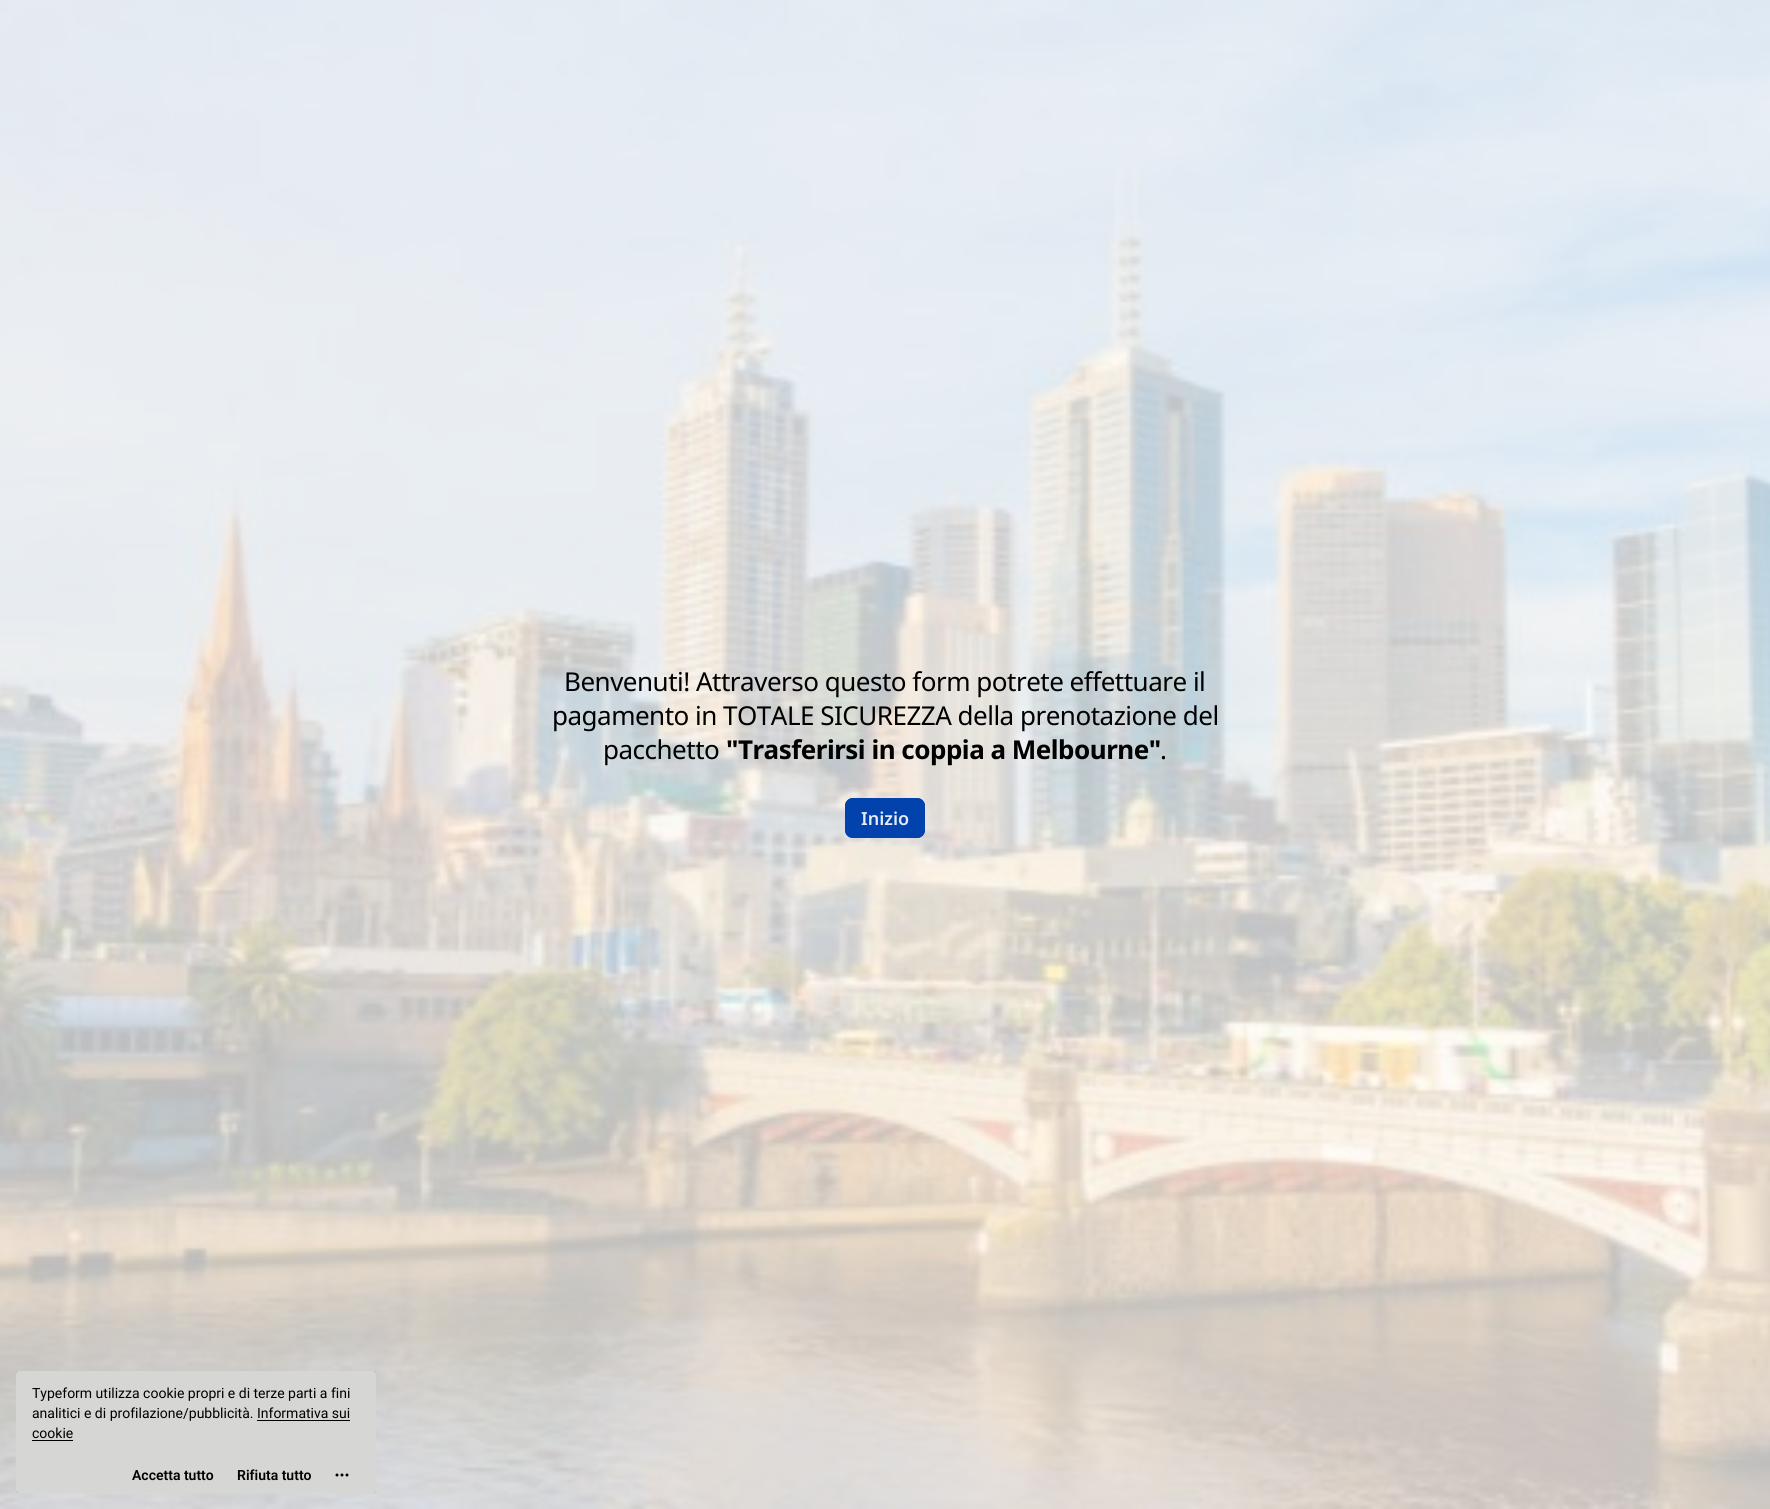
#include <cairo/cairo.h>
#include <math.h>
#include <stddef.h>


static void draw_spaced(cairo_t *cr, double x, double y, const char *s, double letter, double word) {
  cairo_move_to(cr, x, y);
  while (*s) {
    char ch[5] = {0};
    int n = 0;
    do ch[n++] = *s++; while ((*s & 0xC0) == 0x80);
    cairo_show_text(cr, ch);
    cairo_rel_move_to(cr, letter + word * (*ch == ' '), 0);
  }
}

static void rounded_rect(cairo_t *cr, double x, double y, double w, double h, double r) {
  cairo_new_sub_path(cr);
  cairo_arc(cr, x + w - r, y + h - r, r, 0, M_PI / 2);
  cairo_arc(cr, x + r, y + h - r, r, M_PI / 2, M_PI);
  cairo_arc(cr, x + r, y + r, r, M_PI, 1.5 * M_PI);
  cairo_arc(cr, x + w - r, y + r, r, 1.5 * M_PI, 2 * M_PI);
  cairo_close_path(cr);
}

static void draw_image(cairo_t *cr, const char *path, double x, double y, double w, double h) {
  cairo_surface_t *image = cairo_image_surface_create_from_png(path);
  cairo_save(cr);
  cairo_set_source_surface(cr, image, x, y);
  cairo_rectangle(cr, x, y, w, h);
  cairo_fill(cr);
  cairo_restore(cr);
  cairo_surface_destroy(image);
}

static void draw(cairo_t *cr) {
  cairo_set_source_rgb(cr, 1, 1, 1);
  cairo_paint(cr);
  draw_image(cr, "images/1.png", 0, 0, 1770, 1509);
  rounded_rect(cr, 845.5, 798.5, 79, 39, 7.5);
  cairo_set_source_rgb(cr, 1 / 255.0, 66 / 255.0, 172 / 255.0);
  cairo_set_line_width(cr, 1);
  cairo_stroke(cr);
  rounded_rect(cr, 845, 798, 80, 40, 8);
  cairo_fill(cr);
  cairo_set_source_rgb(cr, 225 / 255.0, 225 / 255.0, 222 / 255.0);
  rounded_rect(cr, 16, 1371, 360, 122, 4);
  cairo_fill(cr);
  cairo_set_source_rgba(cr, 0, 0, 0, 0.05);
  cairo_rectangle(cr, 16, 1371, 360, 122);
  cairo_fill(cr);
  cairo_set_source_rgb(cr, 0, 0, 0);
  cairo_rectangle(cr, 257, 1420, 93, 1);
  cairo_fill(cr);
  cairo_rectangle(cr, 32, 1440, 41, 1);
  cairo_fill(cr);
  draw_image(cr, "images/2.png", 335, 1473, 14, 4);
  cairo_select_font_face(cr, "Noto Sans", CAIRO_FONT_SLANT_NORMAL, CAIRO_FONT_WEIGHT_NORMAL);
  cairo_set_font_size(cr, 26);
  draw_spaced(cr, 564, 691, "Benvenuti! Attraverso questo form potrete effettuare il", -0.5, 0);
  draw_spaced(cr, 552, 725, "pagamento in TOTALE SICUREZZA della prenotazione del", -0.5, 0);
  draw_spaced(cr, 603, 759, "pacchetto", -0.5, 0);
  cairo_select_font_face(cr, "Noto Sans", CAIRO_FONT_SLANT_NORMAL, CAIRO_FONT_WEIGHT_BOLD);
  draw_spaced(cr, 726, 759, "\"Trasferirsi in coppia a Melbourne\"", -0.5, 0);
  cairo_select_font_face(cr, "Noto Sans", CAIRO_FONT_SLANT_NORMAL, CAIRO_FONT_WEIGHT_NORMAL);
  draw_spaced(cr, 1160, 759, ".", -0.5, 0);
  cairo_select_font_face(cr, "Noto Sans SemiBold", CAIRO_FONT_SLANT_NORMAL, CAIRO_FONT_WEIGHT_NORMAL);
  cairo_set_font_size(cr, 18);
  cairo_set_source_rgb(cr, 230 / 255.0, 236 / 255.0, 247 / 255.0);
  cairo_move_to(cr, 861, 825);
  cairo_show_text(cr, "Inizio");
  cairo_select_font_face(cr, "Roboto", CAIRO_FONT_SLANT_NORMAL, CAIRO_FONT_WEIGHT_NORMAL);
  cairo_set_font_size(cr, 14);
  cairo_set_source_rgb(cr, 0, 0, 0);
  cairo_move_to(cr, 32, 1398);
  cairo_show_text(cr, "Typeform utilizza cookie propri e di terze parti a fini");
  cairo_move_to(cr, 32, 1418);
  cairo_show_text(cr, "analitici e di profilazione/pubblicità. Informativa sui");
  cairo_move_to(cr, 32, 1438);
  cairo_show_text(cr, "cookie");
  cairo_select_font_face(cr, "Roboto SemiBold", CAIRO_FONT_SLANT_NORMAL, CAIRO_FONT_WEIGHT_NORMAL);
  cairo_move_to(cr, 132, 1480);
  cairo_show_text(cr, "Accetta tutto");
  cairo_move_to(cr, 237, 1480);
  cairo_show_text(cr, "Rifiuta tutto");
}

int main(void) {
  cairo_surface_t *surface = cairo_image_surface_create(CAIRO_FORMAT_RGB24, 1770, 1509);
  cairo_t *cr = cairo_create(surface);
  cairo_font_options_t *options = cairo_font_options_create();
  cairo_font_options_set_hint_metrics(options, CAIRO_HINT_METRICS_OFF);
  cairo_font_options_set_hint_style(options, CAIRO_HINT_STYLE_NONE);
  cairo_set_font_options(cr, options);
  cairo_set_miter_limit(cr, 4);
  draw(cr);
  cairo_surface_write_to_png(surface, "out.png");
  cairo_font_options_destroy(options);
  cairo_destroy(cr);
  cairo_surface_destroy(surface);
  return 0;
}
